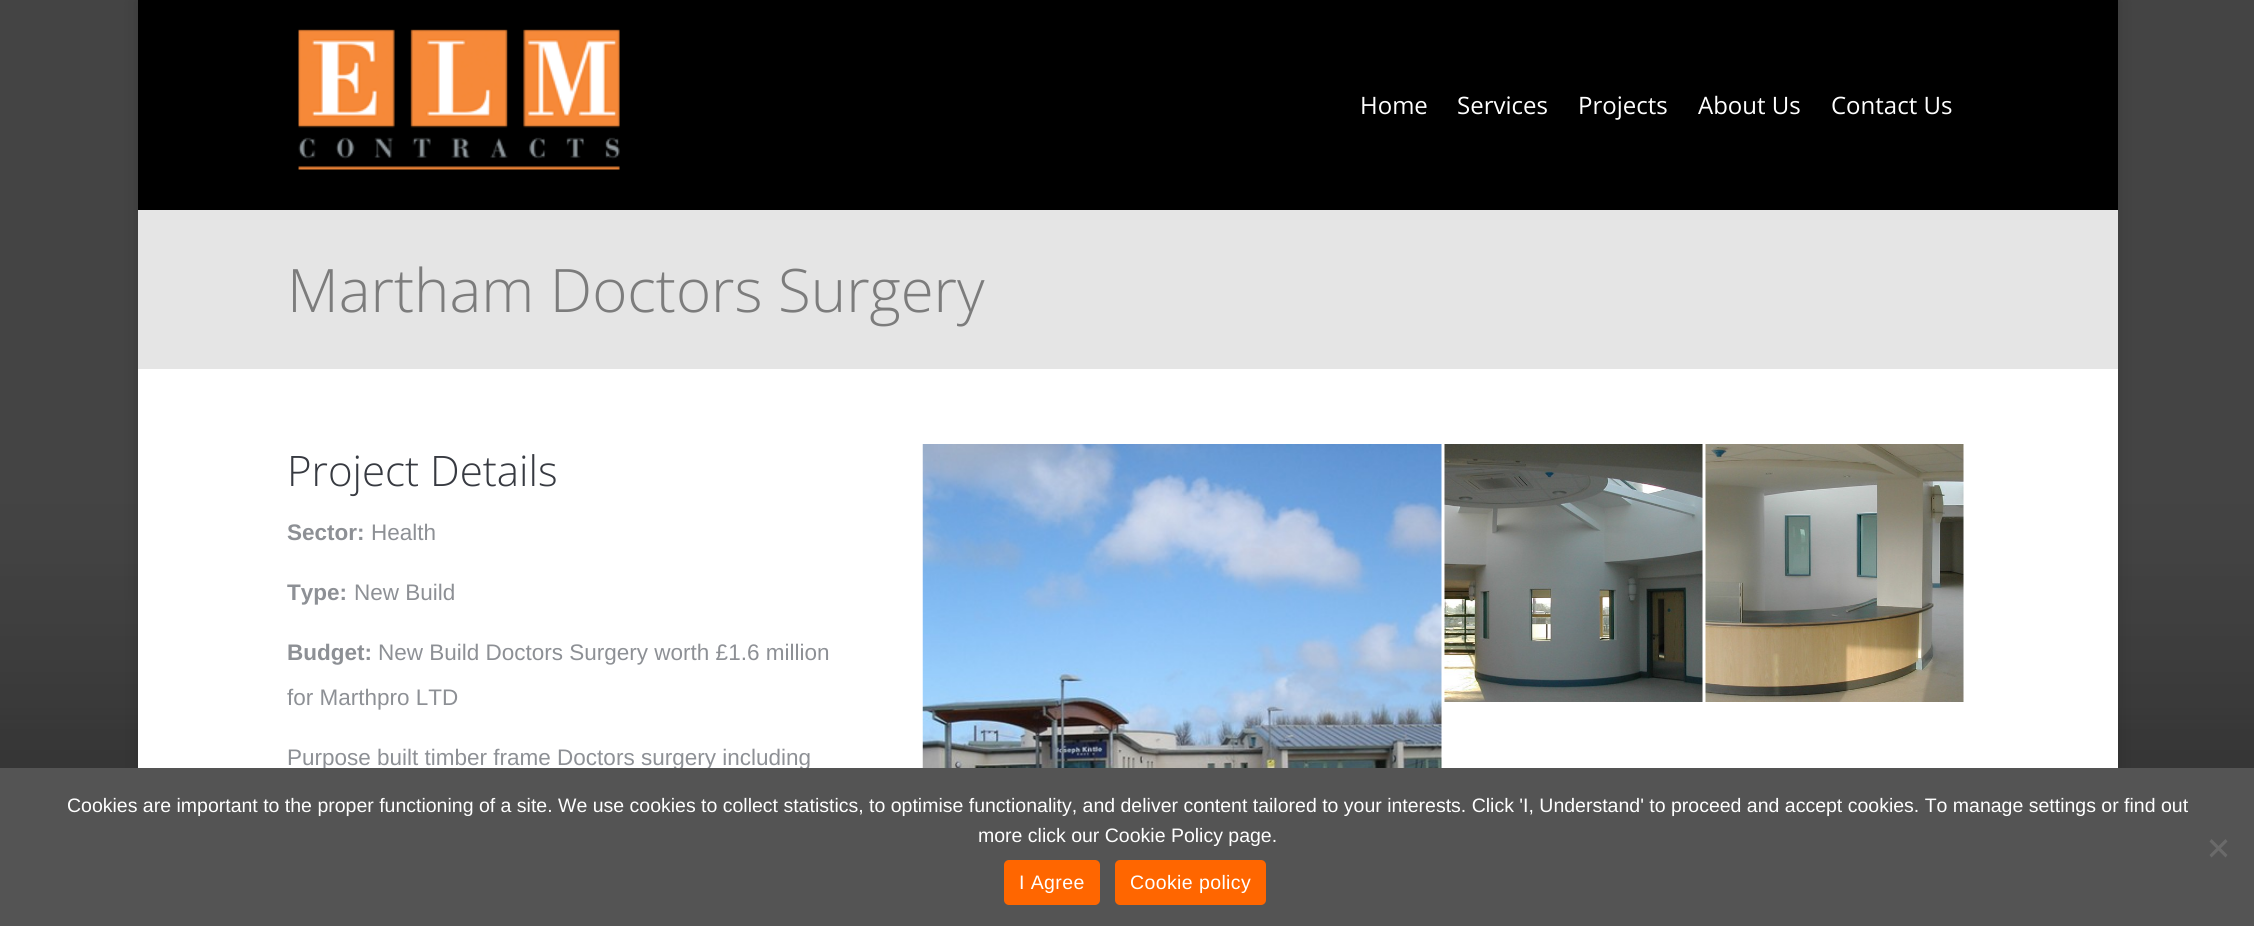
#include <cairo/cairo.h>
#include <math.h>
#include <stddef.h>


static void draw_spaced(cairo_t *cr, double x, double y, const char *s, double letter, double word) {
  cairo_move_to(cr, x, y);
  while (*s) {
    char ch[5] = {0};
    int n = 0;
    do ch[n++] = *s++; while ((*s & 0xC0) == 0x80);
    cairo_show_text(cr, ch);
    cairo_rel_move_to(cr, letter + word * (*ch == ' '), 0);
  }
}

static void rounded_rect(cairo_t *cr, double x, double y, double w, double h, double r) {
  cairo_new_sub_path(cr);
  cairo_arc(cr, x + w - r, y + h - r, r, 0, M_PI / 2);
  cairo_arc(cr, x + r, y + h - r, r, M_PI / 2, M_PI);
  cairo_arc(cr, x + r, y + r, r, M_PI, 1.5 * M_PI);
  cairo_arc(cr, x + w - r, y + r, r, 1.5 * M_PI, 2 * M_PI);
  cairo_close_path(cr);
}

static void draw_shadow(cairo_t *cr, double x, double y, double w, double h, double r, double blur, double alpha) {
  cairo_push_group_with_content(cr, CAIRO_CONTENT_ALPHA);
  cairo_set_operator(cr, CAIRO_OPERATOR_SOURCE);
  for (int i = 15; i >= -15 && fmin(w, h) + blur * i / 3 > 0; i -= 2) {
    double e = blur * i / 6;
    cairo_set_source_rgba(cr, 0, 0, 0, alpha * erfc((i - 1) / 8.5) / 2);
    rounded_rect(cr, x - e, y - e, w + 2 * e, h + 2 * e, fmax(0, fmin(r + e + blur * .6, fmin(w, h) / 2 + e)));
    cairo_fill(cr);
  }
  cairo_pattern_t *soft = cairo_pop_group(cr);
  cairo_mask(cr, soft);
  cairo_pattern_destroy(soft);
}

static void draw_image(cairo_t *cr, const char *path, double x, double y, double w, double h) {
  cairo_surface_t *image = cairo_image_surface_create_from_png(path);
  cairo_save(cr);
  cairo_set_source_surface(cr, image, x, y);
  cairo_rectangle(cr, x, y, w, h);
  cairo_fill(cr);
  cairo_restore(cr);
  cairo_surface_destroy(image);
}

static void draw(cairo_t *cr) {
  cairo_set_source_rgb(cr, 1, 1, 1);
  cairo_paint(cr);
  draw_image(cr, "images/1.png", 0, 0, 2254, 768);
  cairo_set_source_rgb(cr, 0, 0, 0);
  draw_shadow(cr, 138, 0, 1980, 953, 0, 9, 0.15);
  cairo_set_source_rgb(cr, 1, 1, 1);
  cairo_rectangle(cr, 138, 369, 1980, 399);
  cairo_fill(cr);
  cairo_set_source_rgb(cr, 0, 0, 0);
  cairo_rectangle(cr, 138, 0, 1980, 210);
  cairo_fill(cr);
  draw_image(cr, "images/2.png", 298, 29, 322, 141);
  cairo_set_source_rgb(cr, 229 / 255.0, 229 / 255.0, 229 / 255.0);
  cairo_rectangle(cr, 138, 210, 1980, 159);
  cairo_fill(cr);
  draw_image(cr, "images/3.png", 922, 444, 520, 324);
  draw_image(cr, "images/4.png", 1444, 444, 259, 258);
  draw_image(cr, "images/5.png", 1705, 444, 259, 258);
  cairo_select_font_face(cr, "Open Sans", CAIRO_FONT_SLANT_NORMAL, CAIRO_FONT_WEIGHT_NORMAL);
  cairo_set_font_size(cr, 24);
  cairo_set_source_rgb(cr, 1, 1, 1);
  cairo_move_to(cr, 1360, 114);
  cairo_show_text(cr, "Home");
  cairo_move_to(cr, 1457, 114);
  cairo_show_text(cr, "Services");
  cairo_move_to(cr, 1578, 114);
  cairo_show_text(cr, "Projects");
  cairo_move_to(cr, 1698, 114);
  cairo_show_text(cr, "About Us");
  cairo_move_to(cr, 1831, 114);
  cairo_show_text(cr, "Contact Us");
  cairo_select_font_face(cr, "Open Sans Light", CAIRO_FONT_SLANT_NORMAL, CAIRO_FONT_WEIGHT_NORMAL);
  cairo_set_font_size(cr, 60);
  cairo_set_source_rgb(cr, 124 / 255.0, 124 / 255.0, 124 / 255.0);
  cairo_move_to(cr, 287, 312);
  cairo_show_text(cr, "Martham Doctors Surgery");
  cairo_set_font_size(cr, 42);
  cairo_set_source_rgb(cr, 55 / 255.0, 58 / 255.0, 65 / 255.0);
  cairo_move_to(cr, 287, 486);
  cairo_show_text(cr, "Project Details");
  cairo_select_font_face(cr, "Liberation Sans", CAIRO_FONT_SLANT_NORMAL, CAIRO_FONT_WEIGHT_BOLD);
  cairo_set_font_size(cr, 22.5);
  cairo_set_source_rgb(cr, 141 / 255.0, 144 / 255.0, 149 / 255.0);
  cairo_move_to(cr, 287, 540);
  cairo_show_text(cr, "Sector:");
  cairo_select_font_face(cr, "Liberation Sans", CAIRO_FONT_SLANT_NORMAL, CAIRO_FONT_WEIGHT_NORMAL);
  cairo_move_to(cr, 371, 540);
  cairo_show_text(cr, "Health");
  cairo_select_font_face(cr, "Liberation Sans", CAIRO_FONT_SLANT_NORMAL, CAIRO_FONT_WEIGHT_BOLD);
  cairo_move_to(cr, 287, 600);
  cairo_show_text(cr, "Type:");
  cairo_select_font_face(cr, "Liberation Sans", CAIRO_FONT_SLANT_NORMAL, CAIRO_FONT_WEIGHT_NORMAL);
  cairo_move_to(cr, 354, 600);
  cairo_show_text(cr, "New Build");
  cairo_select_font_face(cr, "Liberation Sans", CAIRO_FONT_SLANT_NORMAL, CAIRO_FONT_WEIGHT_BOLD);
  cairo_move_to(cr, 287, 660);
  cairo_show_text(cr, "Budget:");
  cairo_select_font_face(cr, "Liberation Sans", CAIRO_FONT_SLANT_NORMAL, CAIRO_FONT_WEIGHT_NORMAL);
  cairo_move_to(cr, 378, 660);
  cairo_show_text(cr, "New Build Doctors Surgery worth £1.6 million");
  cairo_move_to(cr, 287, 705);
  cairo_show_text(cr, "for Marthpro LTD");
  cairo_move_to(cr, 287, 765);
  cairo_show_text(cr, "Purpose built timber frame Doctors surgery including");
  cairo_set_source_rgb(cr, 84 / 255.0, 84 / 255.0, 84 / 255.0);
  cairo_rectangle(cr, 0, 768, 2254, 158);
  cairo_fill(cr);
  cairo_set_font_size(cr, 19.5);
  cairo_set_source_rgb(cr, 1, 1, 1);
  cairo_move_to(cr, 67, 812);
  cairo_show_text(cr, "Cookies are important to the proper functioning of a site. We use cookies to collect statistics, to optimise functionality, and deliver content tailored to your interests. Click 'I, Understand' to proceed and accept cookies. To manage settings or find out");
  cairo_move_to(cr, 978, 842);
  cairo_show_text(cr, "more click our Cookie Policy page.");
  cairo_set_source_rgb(cr, 106 / 255.0, 106 / 255.0, 106 / 255.0);
  cairo_new_path(cr);
  cairo_move_to(cr, 2225.5, 839);
  cairo_line_to(cr, 2227.5, 841.5);
  cairo_line_to(cr, 2211.5, 857.5);
  cairo_line_to(cr, 2209.5, 855);
  cairo_close_path(cr);
  cairo_fill(cr);
  cairo_new_path(cr);
  cairo_move_to(cr, 2209.5, 841.5);
  cairo_line_to(cr, 2211.5, 839);
  cairo_line_to(cr, 2227.5, 855);
  cairo_line_to(cr, 2225.5, 857.5);
  cairo_close_path(cr);
  cairo_fill(cr);
  cairo_set_source_rgb(cr, 1, 102 / 255.0, 0);
  rounded_rect(cr, 1004, 860, 96, 45, 5);
  cairo_fill(cr);
  cairo_set_source_rgb(cr, 1, 1, 1);
  draw_spaced(cr, 1019, 889, "I Agree", 0.4, 0);
  cairo_set_source_rgb(cr, 1, 102 / 255.0, 0);
  rounded_rect(cr, 1115, 860, 151, 45, 5);
  cairo_fill(cr);
  cairo_set_source_rgb(cr, 1, 1, 1);
  draw_spaced(cr, 1130, 889, "Cookie policy", 0.4, 0);
}

int main(void) {
  cairo_surface_t *surface = cairo_image_surface_create(CAIRO_FORMAT_RGB24, 2254, 926);
  cairo_t *cr = cairo_create(surface);
  cairo_font_options_t *options = cairo_font_options_create();
  cairo_font_options_set_hint_metrics(options, CAIRO_HINT_METRICS_OFF);
  cairo_font_options_set_hint_style(options, CAIRO_HINT_STYLE_NONE);
  cairo_set_font_options(cr, options);
  cairo_set_miter_limit(cr, 4);
  draw(cr);
  cairo_surface_write_to_png(surface, "out.png");
  cairo_font_options_destroy(options);
  cairo_destroy(cr);
  cairo_surface_destroy(surface);
  return 0;
}
